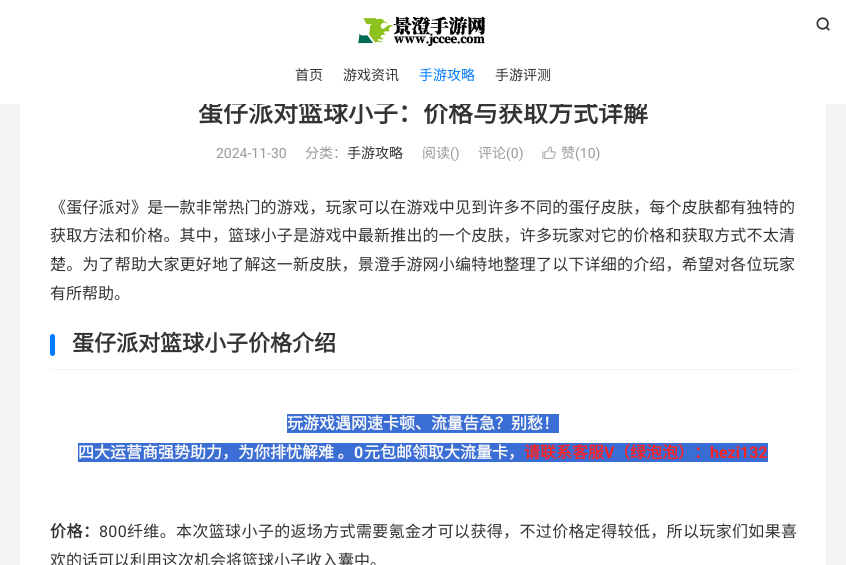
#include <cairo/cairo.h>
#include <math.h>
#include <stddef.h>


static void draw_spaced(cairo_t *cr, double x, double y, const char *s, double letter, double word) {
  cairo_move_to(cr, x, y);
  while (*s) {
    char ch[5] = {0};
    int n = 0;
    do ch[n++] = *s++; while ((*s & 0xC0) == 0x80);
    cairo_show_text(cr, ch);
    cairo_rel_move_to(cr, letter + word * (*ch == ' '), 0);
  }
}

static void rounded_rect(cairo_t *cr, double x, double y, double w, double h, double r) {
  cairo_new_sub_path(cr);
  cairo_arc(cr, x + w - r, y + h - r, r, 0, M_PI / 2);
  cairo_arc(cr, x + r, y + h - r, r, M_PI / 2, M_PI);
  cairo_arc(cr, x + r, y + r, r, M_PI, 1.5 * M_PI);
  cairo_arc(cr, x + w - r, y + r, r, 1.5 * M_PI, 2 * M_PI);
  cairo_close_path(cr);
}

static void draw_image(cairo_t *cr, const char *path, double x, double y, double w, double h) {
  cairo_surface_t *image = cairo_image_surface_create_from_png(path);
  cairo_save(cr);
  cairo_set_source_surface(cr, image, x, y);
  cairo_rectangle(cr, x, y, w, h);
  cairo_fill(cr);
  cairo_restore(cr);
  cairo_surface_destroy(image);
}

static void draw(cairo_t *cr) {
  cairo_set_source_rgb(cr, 244 / 255.0, 244 / 255.0, 244 / 255.0);
  cairo_paint(cr);
  cairo_set_source_rgb(cr, 1, 1, 1);
  cairo_rectangle(cr, 20, 104, 806, 461);
  cairo_fill(cr);
  draw_image(cr, "images/3.png", 542, 146, 14, 13);
  cairo_set_source_rgb(cr, 243 / 255.0, 243 / 255.0, 243 / 255.0);
  cairo_rectangle(cr, 50, 369, 746, 1);
  cairo_fill(cr);
  cairo_set_source_rgb(cr, 0, 123 / 255.0, 1);
  rounded_rect(cr, 50, 334, 5, 22, 2.5);
  cairo_fill(cr);
  cairo_set_source_rgb(cr, 59 / 255.0, 110 / 255.0, 213 / 255.0);
  cairo_rectangle(cr, 287, 414, 272, 19);
  cairo_fill(cr);
  cairo_rectangle(cr, 78, 443, 690, 19);
  cairo_fill(cr);
  cairo_select_font_face(cr, "Noto Sans CJK SC", CAIRO_FONT_SLANT_NORMAL, CAIRO_FONT_WEIGHT_BOLD);
  cairo_set_font_size(cr, 25);
  cairo_set_source_rgb(cr, 51 / 255.0, 51 / 255.0, 51 / 255.0);
  cairo_move_to(cr, 198, 122);
  cairo_show_text(cr, "蛋仔派对篮球小子：价格与获取方式详解");
  cairo_set_source_rgb(cr, 1, 1, 1);
  cairo_rectangle(cr, 0, 0, 846, 104);
  cairo_fill(cr);
  cairo_select_font_face(cr, "Noto Sans CJK SC", CAIRO_FONT_SLANT_NORMAL, CAIRO_FONT_WEIGHT_NORMAL);
  cairo_set_font_size(cr, 14);
  cairo_set_source_rgb(cr, 51 / 255.0, 51 / 255.0, 51 / 255.0);
  cairo_move_to(cr, 495, 80);
  cairo_show_text(cr, "手游评测");
  cairo_set_source_rgb(cr, 0, 123 / 255.0, 1);
  cairo_move_to(cr, 419, 80);
  cairo_show_text(cr, "手游攻略");
  cairo_set_source_rgb(cr, 51 / 255.0, 51 / 255.0, 51 / 255.0);
  cairo_move_to(cr, 343, 80);
  cairo_show_text(cr, "游戏资讯");
  cairo_move_to(cr, 295, 80);
  cairo_show_text(cr, "首页");
  draw_image(cr, "images/2.png", 816, 17, 14, 14);
  draw_image(cr, "images/1.png", 358, 16, 128, 31);
  cairo_select_font_face(cr, "Roboto", CAIRO_FONT_SLANT_NORMAL, CAIRO_FONT_WEIGHT_NORMAL);
  cairo_set_source_rgb(cr, 153 / 255.0, 153 / 255.0, 153 / 255.0);
  cairo_move_to(cr, 216, 158);
  cairo_show_text(cr, "2024-11-30");
  cairo_select_font_face(cr, "Noto Sans CJK SC", CAIRO_FONT_SLANT_NORMAL, CAIRO_FONT_WEIGHT_NORMAL);
  cairo_move_to(cr, 305, 158);
  cairo_show_text(cr, "分类：");
  cairo_set_source_rgb(cr, 51 / 255.0, 51 / 255.0, 51 / 255.0);
  cairo_move_to(cr, 347, 158);
  cairo_show_text(cr, "手游攻略");
  cairo_set_source_rgb(cr, 153 / 255.0, 153 / 255.0, 153 / 255.0);
  cairo_move_to(cr, 422, 158);
  cairo_show_text(cr, "阅读");
  cairo_select_font_face(cr, "Roboto", CAIRO_FONT_SLANT_NORMAL, CAIRO_FONT_WEIGHT_NORMAL);
  cairo_move_to(cr, 450, 158);
  cairo_show_text(cr, "()");
  cairo_select_font_face(cr, "Noto Sans CJK SC", CAIRO_FONT_SLANT_NORMAL, CAIRO_FONT_WEIGHT_NORMAL);
  cairo_move_to(cr, 478, 158);
  cairo_show_text(cr, "评论");
  cairo_select_font_face(cr, "Roboto", CAIRO_FONT_SLANT_NORMAL, CAIRO_FONT_WEIGHT_NORMAL);
  cairo_move_to(cr, 506, 158);
  cairo_show_text(cr, "(0)");
  cairo_select_font_face(cr, "Noto Sans CJK SC", CAIRO_FONT_SLANT_NORMAL, CAIRO_FONT_WEIGHT_NORMAL);
  cairo_move_to(cr, 561, 158);
  cairo_show_text(cr, "赞");
  cairo_select_font_face(cr, "Roboto", CAIRO_FONT_SLANT_NORMAL, CAIRO_FONT_WEIGHT_NORMAL);
  cairo_move_to(cr, 575, 158);
  cairo_show_text(cr, "(10)");
  cairo_select_font_face(cr, "Noto Sans CJK SC", CAIRO_FONT_SLANT_NORMAL, CAIRO_FONT_WEIGHT_NORMAL);
  cairo_set_font_size(cr, 16);
  cairo_set_source_rgb(cr, 51 / 255.0, 51 / 255.0, 51 / 255.0);
  draw_spaced(cr, 50, 213, "《蛋仔派对》是一款非常热门的游戏，玩家可以在游戏中见到许多不同的蛋仔皮肤，每个皮肤都有独特的", 0.2, 0);
  draw_spaced(cr, 50, 241, "获取方法和价格。其中，篮球小子是游戏中最新推出的一个皮肤，许多玩家对它的价格和获取方式不太清", 0.2, 0);
  draw_spaced(cr, 50, 270, "楚。为了帮助大家更好地了解这一新皮肤，景澄手游网小编特地整理了以下详细的介绍，希望对各位玩家", 0.2, 0);
  cairo_move_to(cr, 50, 299);
  cairo_show_text(cr, "有所帮助。");
  cairo_select_font_face(cr, "Noto Sans CJK SC", CAIRO_FONT_SLANT_NORMAL, CAIRO_FONT_WEIGHT_BOLD);
  cairo_set_font_size(cr, 22);
  cairo_move_to(cr, 72, 351);
  cairo_show_text(cr, "蛋仔派对篮球小子价格介绍");
  cairo_set_font_size(cr, 16);
  cairo_set_source_rgb(cr, 248 / 255.0, 248 / 255.0, 248 / 255.0);
  cairo_move_to(cr, 287, 429);
  cairo_show_text(cr, "玩游戏遇网速卡顿、流量告急？别愁！");
  cairo_move_to(cr, 78, 458);
  cairo_show_text(cr, "四大运营商强势助力，为你排忧解难 。");
  cairo_select_font_face(cr, "Roboto", CAIRO_FONT_SLANT_NORMAL, CAIRO_FONT_WEIGHT_BOLD);
  cairo_move_to(cr, 354, 458);
  cairo_show_text(cr, "0");
  cairo_select_font_face(cr, "Noto Sans CJK SC", CAIRO_FONT_SLANT_NORMAL, CAIRO_FONT_WEIGHT_BOLD);
  cairo_move_to(cr, 364, 458);
  cairo_show_text(cr, "元包邮领取大流量卡，");
  cairo_set_source_rgb(cr, 251 / 255.0, 33 / 255.0, 33 / 255.0);
  cairo_move_to(cr, 524, 458);
  cairo_show_text(cr, "请联系客服");
  cairo_select_font_face(cr, "Roboto", CAIRO_FONT_SLANT_NORMAL, CAIRO_FONT_WEIGHT_BOLD);
  cairo_move_to(cr, 604, 458);
  cairo_show_text(cr, "V");
  cairo_select_font_face(cr, "Noto Sans CJK SC", CAIRO_FONT_SLANT_NORMAL, CAIRO_FONT_WEIGHT_BOLD);
  cairo_move_to(cr, 614, 458);
  cairo_show_text(cr, "（绿泡泡）：");
  cairo_select_font_face(cr, "Roboto", CAIRO_FONT_SLANT_NORMAL, CAIRO_FONT_WEIGHT_BOLD);
  cairo_move_to(cr, 710, 458);
  cairo_show_text(cr, "hezi132");
  cairo_select_font_face(cr, "Noto Sans CJK SC", CAIRO_FONT_SLANT_NORMAL, CAIRO_FONT_WEIGHT_BOLD);
  cairo_set_source_rgb(cr, 51 / 255.0, 51 / 255.0, 51 / 255.0);
  draw_spaced(cr, 50, 537, "价格：", 0.5, 0);
  cairo_select_font_face(cr, "Roboto", CAIRO_FONT_SLANT_NORMAL, CAIRO_FONT_WEIGHT_NORMAL);
  draw_spaced(cr, 99, 537, "800", 0.35, 0);
  cairo_select_font_face(cr, "Noto Sans CJK SC", CAIRO_FONT_SLANT_NORMAL, CAIRO_FONT_WEIGHT_NORMAL);
  draw_spaced(cr, 127, 537, "纤维。本次篮球小子的返场方式需要氪金才可以获得，不过价格定得较低，所以玩家们如果喜", 0.35, 0);
  cairo_move_to(cr, 50, 566);
  cairo_show_text(cr, "欢的话可以利用这次机会将篮球小子收入囊中。");
}

int main(void) {
  cairo_surface_t *surface = cairo_image_surface_create(CAIRO_FORMAT_RGB24, 846, 565);
  cairo_t *cr = cairo_create(surface);
  cairo_font_options_t *options = cairo_font_options_create();
  cairo_font_options_set_hint_metrics(options, CAIRO_HINT_METRICS_OFF);
  cairo_font_options_set_hint_style(options, CAIRO_HINT_STYLE_NONE);
  cairo_set_font_options(cr, options);
  cairo_set_miter_limit(cr, 4);
  draw(cr);
  cairo_surface_write_to_png(surface, "out.png");
  cairo_font_options_destroy(options);
  cairo_destroy(cr);
  cairo_surface_destroy(surface);
  return 0;
}
